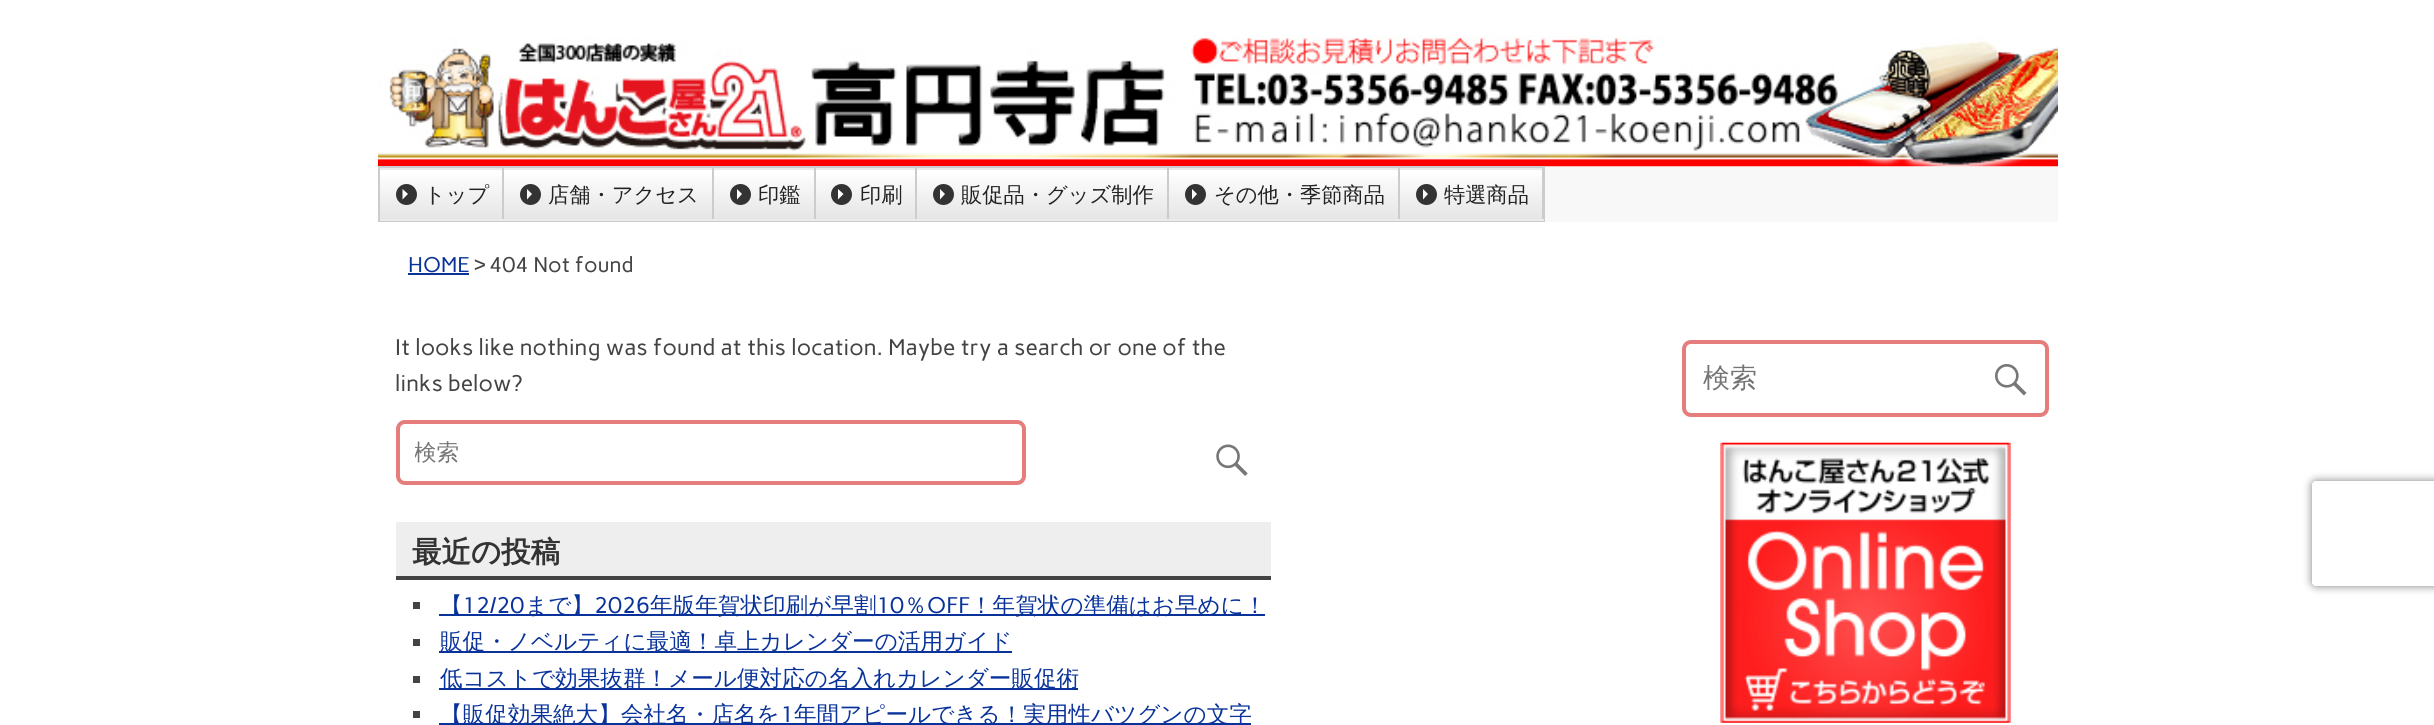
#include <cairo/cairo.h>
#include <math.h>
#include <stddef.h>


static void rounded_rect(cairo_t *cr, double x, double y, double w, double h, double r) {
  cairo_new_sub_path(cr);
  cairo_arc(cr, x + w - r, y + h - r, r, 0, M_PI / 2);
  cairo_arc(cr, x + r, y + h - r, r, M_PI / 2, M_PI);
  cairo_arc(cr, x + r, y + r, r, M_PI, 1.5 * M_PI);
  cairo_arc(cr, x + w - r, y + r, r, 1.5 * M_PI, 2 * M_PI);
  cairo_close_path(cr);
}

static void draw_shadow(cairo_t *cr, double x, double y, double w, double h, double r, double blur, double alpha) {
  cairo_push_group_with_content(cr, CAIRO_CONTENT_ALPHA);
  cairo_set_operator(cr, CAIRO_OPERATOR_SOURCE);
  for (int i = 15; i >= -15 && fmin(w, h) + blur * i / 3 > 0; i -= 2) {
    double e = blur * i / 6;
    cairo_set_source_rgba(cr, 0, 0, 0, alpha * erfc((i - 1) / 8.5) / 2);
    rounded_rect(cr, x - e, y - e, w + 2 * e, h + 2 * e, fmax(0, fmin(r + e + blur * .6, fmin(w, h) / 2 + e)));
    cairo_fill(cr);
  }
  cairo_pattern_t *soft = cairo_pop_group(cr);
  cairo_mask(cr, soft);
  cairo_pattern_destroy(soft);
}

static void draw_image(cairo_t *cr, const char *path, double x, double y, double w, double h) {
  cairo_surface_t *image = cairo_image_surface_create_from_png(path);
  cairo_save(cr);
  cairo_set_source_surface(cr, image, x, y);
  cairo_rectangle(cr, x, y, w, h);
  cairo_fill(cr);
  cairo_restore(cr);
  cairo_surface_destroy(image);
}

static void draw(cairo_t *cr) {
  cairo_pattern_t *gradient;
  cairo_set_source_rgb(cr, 1, 1, 1);
  cairo_paint(cr);
  cairo_set_source_rgb(cr, 248 / 255.0, 248 / 255.0, 248 / 255.0);
  cairo_rectangle(cr, 1545, 166, 513, 56);
  cairo_fill(cr);
  draw_image(cr, "images/1.png", 378, 35, 1680, 132);
  cairo_rectangle(cr, 379, 167, 1165, 54);
  cairo_set_source_rgb(cr, 203 / 255.0, 204 / 255.0, 206 / 255.0);
  cairo_stroke(cr);
  gradient = cairo_pattern_create_linear(441, 170, 441, 219);
  cairo_pattern_add_color_stop_rgba(gradient, 0, 1, 1, 1, 1);
  cairo_pattern_add_color_stop_rgba(gradient, 1, 229 / 255.0, 229 / 255.0, 229 / 255.0, 1);
  cairo_set_source(cr, gradient);
  cairo_pattern_destroy(gradient);
  cairo_rectangle(cr, 380, 175, 122, 44);
  cairo_fill(cr);
  cairo_set_source_rgb(cr, 234 / 255.0, 235 / 255.0, 236 / 255.0);
  cairo_rectangle(cr, 380, 168, 1164, 2);
  cairo_fill(cr);
  cairo_set_source_rgb(cr, 203 / 255.0, 204 / 255.0, 206 / 255.0);
  cairo_rectangle(cr, 502, 168, 2, 53);
  cairo_fill(cr);
  cairo_set_source_rgb(cr, 234 / 255.0, 235 / 255.0, 236 / 255.0);
  cairo_rectangle(cr, 380, 219, 124, 2);
  cairo_fill(cr);
  cairo_set_source_rgb(cr, 51 / 255.0, 51 / 255.0, 51 / 255.0);
  cairo_arc(cr, 406.5, 194.5, 10.5, 0, 2 * M_PI);
  cairo_fill(cr);
  cairo_set_source_rgb(cr, 1, 1, 1);
  cairo_new_path(cr);
  cairo_move_to(cr, 402.5, 199.5);
  cairo_line_to(cr, 402.5, 189);
  cairo_line_to(cr, 408, 194);
  cairo_close_path(cr);
  cairo_fill(cr);
  gradient = cairo_pattern_create_linear(608, 170, 608, 219);
  cairo_pattern_add_color_stop_rgba(gradient, 0, 1, 1, 1, 1);
  cairo_pattern_add_color_stop_rgba(gradient, 1, 229 / 255.0, 229 / 255.0, 229 / 255.0, 1);
  cairo_set_source(cr, gradient);
  cairo_pattern_destroy(gradient);
  cairo_rectangle(cr, 504, 175, 208, 44);
  cairo_fill(cr);
  cairo_set_source_rgb(cr, 203 / 255.0, 204 / 255.0, 206 / 255.0);
  cairo_rectangle(cr, 712, 168, 2, 53);
  cairo_fill(cr);
  cairo_set_source_rgb(cr, 234 / 255.0, 235 / 255.0, 236 / 255.0);
  cairo_rectangle(cr, 504, 219, 210, 2);
  cairo_fill(cr);
  cairo_set_source_rgb(cr, 51 / 255.0, 51 / 255.0, 51 / 255.0);
  cairo_arc(cr, 530.5, 194.5, 10.5, 0, 2 * M_PI);
  cairo_fill(cr);
  cairo_set_source_rgb(cr, 1, 1, 1);
  cairo_new_path(cr);
  cairo_move_to(cr, 527, 199.5);
  cairo_line_to(cr, 527, 189);
  cairo_line_to(cr, 532, 194);
  cairo_close_path(cr);
  cairo_fill(cr);
  gradient = cairo_pattern_create_linear(764, 170, 764, 219);
  cairo_pattern_add_color_stop_rgba(gradient, 0, 1, 1, 1, 1);
  cairo_pattern_add_color_stop_rgba(gradient, 1, 229 / 255.0, 229 / 255.0, 229 / 255.0, 1);
  cairo_set_source(cr, gradient);
  cairo_pattern_destroy(gradient);
  cairo_rectangle(cr, 714, 175, 100, 44);
  cairo_fill(cr);
  cairo_set_source_rgb(cr, 203 / 255.0, 204 / 255.0, 206 / 255.0);
  cairo_rectangle(cr, 814, 168, 2, 53);
  cairo_fill(cr);
  cairo_set_source_rgb(cr, 234 / 255.0, 235 / 255.0, 236 / 255.0);
  cairo_rectangle(cr, 714, 219, 102, 2);
  cairo_fill(cr);
  cairo_set_source_rgb(cr, 51 / 255.0, 51 / 255.0, 51 / 255.0);
  cairo_arc(cr, 740.5, 194.5, 10.5, 0, 2 * M_PI);
  cairo_fill(cr);
  cairo_set_source_rgb(cr, 1, 1, 1);
  cairo_new_path(cr);
  cairo_move_to(cr, 737, 199.5);
  cairo_line_to(cr, 737, 189);
  cairo_line_to(cr, 742, 194);
  cairo_close_path(cr);
  cairo_fill(cr);
  gradient = cairo_pattern_create_linear(865, 170, 865, 219);
  cairo_pattern_add_color_stop_rgba(gradient, 0, 1, 1, 1, 1);
  cairo_pattern_add_color_stop_rgba(gradient, 1, 229 / 255.0, 229 / 255.0, 229 / 255.0, 1);
  cairo_set_source(cr, gradient);
  cairo_pattern_destroy(gradient);
  cairo_rectangle(cr, 816, 175, 99, 44);
  cairo_fill(cr);
  cairo_set_source_rgb(cr, 203 / 255.0, 204 / 255.0, 206 / 255.0);
  cairo_rectangle(cr, 915, 168, 2, 53);
  cairo_fill(cr);
  cairo_set_source_rgb(cr, 234 / 255.0, 235 / 255.0, 236 / 255.0);
  cairo_rectangle(cr, 816, 219, 101, 2);
  cairo_fill(cr);
  cairo_set_source_rgb(cr, 51 / 255.0, 51 / 255.0, 51 / 255.0);
  cairo_arc(cr, 841.5, 194.5, 10.5, 0, 2 * M_PI);
  cairo_fill(cr);
  cairo_set_source_rgb(cr, 1, 1, 1);
  cairo_new_path(cr);
  cairo_move_to(cr, 838, 199.5);
  cairo_line_to(cr, 838, 189);
  cairo_line_to(cr, 843.5, 194);
  cairo_close_path(cr);
  cairo_fill(cr);
  gradient = cairo_pattern_create_linear(1042, 170, 1042, 219);
  cairo_pattern_add_color_stop_rgba(gradient, 0, 1, 1, 1, 1);
  cairo_pattern_add_color_stop_rgba(gradient, 1, 229 / 255.0, 229 / 255.0, 229 / 255.0, 1);
  cairo_set_source(cr, gradient);
  cairo_pattern_destroy(gradient);
  cairo_rectangle(cr, 917, 175, 250, 44);
  cairo_fill(cr);
  cairo_set_source_rgb(cr, 203 / 255.0, 204 / 255.0, 206 / 255.0);
  cairo_rectangle(cr, 1167, 168, 2, 53);
  cairo_fill(cr);
  cairo_set_source_rgb(cr, 234 / 255.0, 235 / 255.0, 236 / 255.0);
  cairo_rectangle(cr, 917, 219, 252, 2);
  cairo_fill(cr);
  cairo_set_source_rgb(cr, 51 / 255.0, 51 / 255.0, 51 / 255.0);
  cairo_arc(cr, 943.5, 194.5, 10.5, 0, 2 * M_PI);
  cairo_fill(cr);
  cairo_set_source_rgb(cr, 1, 1, 1);
  cairo_new_path(cr);
  cairo_move_to(cr, 940, 199.5);
  cairo_line_to(cr, 940, 189);
  cairo_line_to(cr, 945, 194);
  cairo_close_path(cr);
  cairo_fill(cr);
  gradient = cairo_pattern_create_linear(1284, 170, 1284, 219);
  cairo_pattern_add_color_stop_rgba(gradient, 0, 1, 1, 1, 1);
  cairo_pattern_add_color_stop_rgba(gradient, 1, 229 / 255.0, 229 / 255.0, 229 / 255.0, 1);
  cairo_set_source(cr, gradient);
  cairo_pattern_destroy(gradient);
  cairo_rectangle(cr, 1169, 175, 229, 44);
  cairo_fill(cr);
  cairo_set_source_rgb(cr, 203 / 255.0, 204 / 255.0, 206 / 255.0);
  cairo_rectangle(cr, 1398, 168, 2, 53);
  cairo_fill(cr);
  cairo_set_source_rgb(cr, 234 / 255.0, 235 / 255.0, 236 / 255.0);
  cairo_rectangle(cr, 1169, 219, 231, 2);
  cairo_fill(cr);
  cairo_set_source_rgb(cr, 51 / 255.0, 51 / 255.0, 51 / 255.0);
  cairo_arc(cr, 1195.5, 194.5, 10.5, 0, 2 * M_PI);
  cairo_fill(cr);
  cairo_set_source_rgb(cr, 1, 1, 1);
  cairo_new_path(cr);
  cairo_move_to(cr, 1192, 199.5);
  cairo_line_to(cr, 1192, 189);
  cairo_line_to(cr, 1197, 194);
  cairo_close_path(cr);
  cairo_fill(cr);
  gradient = cairo_pattern_create_linear(1471, 170, 1471, 219);
  cairo_pattern_add_color_stop_rgba(gradient, 0, 1, 1, 1, 1);
  cairo_pattern_add_color_stop_rgba(gradient, 1, 229 / 255.0, 229 / 255.0, 229 / 255.0, 1);
  cairo_set_source(cr, gradient);
  cairo_pattern_destroy(gradient);
  cairo_rectangle(cr, 1400, 175, 142, 44);
  cairo_fill(cr);
  cairo_set_source_rgb(cr, 203 / 255.0, 204 / 255.0, 206 / 255.0);
  cairo_rectangle(cr, 1542, 168, 2, 53);
  cairo_fill(cr);
  cairo_set_source_rgb(cr, 234 / 255.0, 235 / 255.0, 236 / 255.0);
  cairo_rectangle(cr, 1400, 219, 144, 2);
  cairo_fill(cr);
  cairo_set_source_rgb(cr, 51 / 255.0, 51 / 255.0, 51 / 255.0);
  cairo_arc(cr, 1426.5, 194.5, 10.5, 0, 2 * M_PI);
  cairo_fill(cr);
  cairo_set_source_rgb(cr, 1, 1, 1);
  cairo_new_path(cr);
  cairo_move_to(cr, 1423, 199.5);
  cairo_line_to(cr, 1423, 189);
  cairo_line_to(cr, 1428, 194);
  cairo_close_path(cr);
  cairo_fill(cr);
  cairo_set_source_rgb(cr, 9 / 255.0, 51 / 255.0, 154 / 255.0);
  cairo_rectangle(cr, 408, 273, 61, 2);
  cairo_fill(cr);
  rounded_rect(cr, 398, 422, 626, 61, 7);
  cairo_set_source_rgb(cr, 230 / 255.0, 125 / 255.0, 125 / 255.0);
  cairo_set_line_width(cr, 4);
  cairo_stroke(cr);
  draw_image(cr, "images/2.png", 1216, 444, 32, 32);
  cairo_set_source_rgb(cr, 238 / 255.0, 238 / 255.0, 238 / 255.0);
  cairo_rectangle(cr, 396, 522, 875, 54);
  cairo_fill(cr);
  cairo_set_source_rgb(cr, 67 / 255.0, 67 / 255.0, 67 / 255.0);
  cairo_rectangle(cr, 396, 576, 875, 4);
  cairo_fill(cr);
  cairo_set_source_rgb(cr, 68 / 255.0, 68 / 255.0, 68 / 255.0);
  cairo_rectangle(cr, 413, 602, 7, 7);
  cairo_fill(cr);
  cairo_set_source_rgb(cr, 9 / 255.0, 51 / 255.0, 154 / 255.0);
  cairo_rectangle(cr, 439, 614, 826, 2);
  cairo_fill(cr);
  cairo_set_source_rgb(cr, 68 / 255.0, 68 / 255.0, 68 / 255.0);
  cairo_rectangle(cr, 413, 639, 7, 7);
  cairo_fill(cr);
  cairo_set_source_rgb(cr, 9 / 255.0, 51 / 255.0, 154 / 255.0);
  cairo_rectangle(cr, 439, 651, 573, 2);
  cairo_fill(cr);
  cairo_set_source_rgb(cr, 68 / 255.0, 68 / 255.0, 68 / 255.0);
  cairo_rectangle(cr, 413, 676, 7, 7);
  cairo_fill(cr);
  cairo_set_source_rgb(cr, 9 / 255.0, 51 / 255.0, 154 / 255.0);
  cairo_rectangle(cr, 439, 688, 639, 2);
  cairo_fill(cr);
  cairo_set_source_rgb(cr, 68 / 255.0, 68 / 255.0, 68 / 255.0);
  cairo_rectangle(cr, 413, 711, 7, 7);
  cairo_fill(cr);
  cairo_set_source_rgb(cr, 9 / 255.0, 51 / 255.0, 154 / 255.0);
  cairo_rectangle(cr, 439, 723, 812, 2);
  cairo_fill(cr);
  rounded_rect(cr, 1684, 342, 363, 73, 7);
  cairo_set_source_rgb(cr, 230 / 255.0, 125 / 255.0, 125 / 255.0);
  cairo_stroke(cr);
  draw_image(cr, "images/3.png", 1995, 364, 32, 32);
  draw_image(cr, "images/4.png", 1720, 442, 291, 281);
  cairo_save(cr);
  cairo_set_fill_rule(cr, CAIRO_FILL_RULE_EVEN_ODD);
  cairo_new_path(cr);
  cairo_move_to(cr, 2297, 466);
  cairo_line_to(cr, 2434, 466);
  cairo_line_to(cr, 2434, 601);
  cairo_line_to(cr, 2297, 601);
  cairo_close_path(cr);
  cairo_move_to(cr, 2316, 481);
  cairo_line_to(cr, 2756, 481);
  cairo_curve_to(cr, 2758, 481, 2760, 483, 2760, 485);
  cairo_line_to(cr, 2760, 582);
  cairo_curve_to(cr, 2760, 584, 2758, 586, 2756, 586);
  cairo_line_to(cr, 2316, 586);
  cairo_curve_to(cr, 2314, 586, 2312, 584, 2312, 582);
  cairo_line_to(cr, 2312, 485);
  cairo_curve_to(cr, 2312, 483, 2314, 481, 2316, 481);
  cairo_close_path(cr);
  cairo_clip(cr);
  cairo_set_source_rgb(cr, 128 / 255.0, 128 / 255.0, 128 / 255.0);
  draw_shadow(cr, 2312, 481, 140, 105, 4, 4.5, 1);
  cairo_restore(cr);
  cairo_select_font_face(cr, "WenQuanYi Zen Hei Medium", CAIRO_FONT_SLANT_NORMAL, CAIRO_FONT_WEIGHT_NORMAL);
  cairo_set_font_size(cr, 21.25);
  cairo_set_source_rgb(cr, 34 / 255.0, 34 / 255.0, 34 / 255.0);
  cairo_move_to(cr, 424, 202);
  cairo_show_text(cr, "トップ");
  cairo_move_to(cr, 548, 202);
  cairo_show_text(cr, "店舗・アクセス");
  cairo_move_to(cr, 758, 202);
  cairo_show_text(cr, "印鑑");
  cairo_move_to(cr, 860, 202);
  cairo_show_text(cr, "印刷");
  cairo_move_to(cr, 961, 202);
  cairo_show_text(cr, "販促品・グッズ制作");
  cairo_move_to(cr, 1214, 202);
  cairo_show_text(cr, "その他・季節商品");
  cairo_move_to(cr, 1444, 202);
  cairo_show_text(cr, "特選商品");
  cairo_select_font_face(cr, "Carme", CAIRO_FONT_SLANT_NORMAL, CAIRO_FONT_WEIGHT_NORMAL);
  cairo_set_source_rgb(cr, 9 / 255.0, 51 / 255.0, 154 / 255.0);
  cairo_move_to(cr, 408, 272);
  cairo_show_text(cr, "HOME");
  cairo_set_source_rgb(cr, 68 / 255.0, 68 / 255.0, 68 / 255.0);
  cairo_move_to(cr, 474, 272);
  cairo_show_text(cr, ">");
  cairo_move_to(cr, 489, 272);
  cairo_show_text(cr, "404 Not found");
  cairo_set_font_size(cr, 22.6);
  cairo_move_to(cr, 395, 355);
  cairo_show_text(cr, "It looks like nothing was found at this location. Maybe try a search or one of the");
  cairo_move_to(cr, 395, 391);
  cairo_show_text(cr, "links below?");
  cairo_save(cr);
  cairo_rectangle(cr, 415, 439, 506, 30);
  cairo_clip(cr);
  cairo_select_font_face(cr, "WenQuanYi Zen Hei Medium", CAIRO_FONT_SLANT_NORMAL, CAIRO_FONT_WEIGHT_NORMAL);
  cairo_set_source_rgb(cr, 117 / 255.0, 117 / 255.0, 117 / 255.0);
  cairo_move_to(cr, 414, 460);
  cairo_show_text(cr, "検索");
  cairo_restore(cr);
  cairo_select_font_face(cr, "WenQuanYi Zen Hei", CAIRO_FONT_SLANT_NORMAL, CAIRO_FONT_WEIGHT_BOLD);
  cairo_set_font_size(cr, 29.5);
  cairo_set_source_rgb(cr, 51 / 255.0, 51 / 255.0, 51 / 255.0);
  cairo_move_to(cr, 412, 562);
  cairo_show_text(cr, "最近の投稿");
  cairo_select_font_face(cr, "WenQuanYi Zen Hei Medium", CAIRO_FONT_SLANT_NORMAL, CAIRO_FONT_WEIGHT_NORMAL);
  cairo_set_font_size(cr, 22.6);
  cairo_set_source_rgb(cr, 9 / 255.0, 51 / 255.0, 154 / 255.0);
  cairo_move_to(cr, 440, 613);
  cairo_show_text(cr, "【");
  cairo_select_font_face(cr, "Carme", CAIRO_FONT_SLANT_NORMAL, CAIRO_FONT_WEIGHT_NORMAL);
  cairo_move_to(cr, 462, 613);
  cairo_show_text(cr, "12/20");
  cairo_select_font_face(cr, "WenQuanYi Zen Hei Medium", CAIRO_FONT_SLANT_NORMAL, CAIRO_FONT_WEIGHT_NORMAL);
  cairo_move_to(cr, 525, 613);
  cairo_show_text(cr, "まで】");
  cairo_select_font_face(cr, "Carme", CAIRO_FONT_SLANT_NORMAL, CAIRO_FONT_WEIGHT_NORMAL);
  cairo_move_to(cr, 594, 613);
  cairo_show_text(cr, "2026");
  cairo_select_font_face(cr, "WenQuanYi Zen Hei Medium", CAIRO_FONT_SLANT_NORMAL, CAIRO_FONT_WEIGHT_NORMAL);
  cairo_move_to(cr, 650, 613);
  cairo_show_text(cr, "年版年賀状印刷が早割");
  cairo_select_font_face(cr, "Carme", CAIRO_FONT_SLANT_NORMAL, CAIRO_FONT_WEIGHT_NORMAL);
  cairo_move_to(cr, 876, 613);
  cairo_show_text(cr, "10");
  cairo_select_font_face(cr, "WenQuanYi Zen Hei Medium", CAIRO_FONT_SLANT_NORMAL, CAIRO_FONT_WEIGHT_NORMAL);
  cairo_move_to(cr, 904, 613);
  cairo_show_text(cr, "％");
  cairo_select_font_face(cr, "Carme", CAIRO_FONT_SLANT_NORMAL, CAIRO_FONT_WEIGHT_NORMAL);
  cairo_move_to(cr, 927, 613);
  cairo_show_text(cr, "OFF");
  cairo_select_font_face(cr, "WenQuanYi Zen Hei Medium", CAIRO_FONT_SLANT_NORMAL, CAIRO_FONT_WEIGHT_NORMAL);
  cairo_move_to(cr, 970, 613);
  cairo_show_text(cr, "！年賀状の準備はお早めに！");
  cairo_move_to(cr, 440, 649);
  cairo_show_text(cr, "販促・ノベルティに最適！卓上カレンダーの活用ガイド");
  cairo_move_to(cr, 440, 686);
  cairo_show_text(cr, "低コストで効果抜群！メール便対応の名入れカレンダー販促術");
  cairo_move_to(cr, 440, 722);
  cairo_show_text(cr, "【販促効果絶大】会社名・店名を");
  cairo_select_font_face(cr, "Carme", CAIRO_FONT_SLANT_NORMAL, CAIRO_FONT_WEIGHT_NORMAL);
  cairo_move_to(cr, 780, 722);
  cairo_show_text(cr, "1");
  cairo_select_font_face(cr, "WenQuanYi Zen Hei Medium", CAIRO_FONT_SLANT_NORMAL, CAIRO_FONT_WEIGHT_NORMAL);
  cairo_move_to(cr, 794, 722);
  cairo_show_text(cr, "年間アピールできる！実用性バツグンの文字");
  cairo_set_font_size(cr, 27);
  cairo_set_source_rgb(cr, 117 / 255.0, 117 / 255.0, 117 / 255.0);
  cairo_move_to(cr, 1703, 387);
  cairo_show_text(cr, "検索");
}

int main(void) {
  cairo_surface_t *surface = cairo_image_surface_create(CAIRO_FORMAT_RGB24, 2434, 725);
  cairo_t *cr = cairo_create(surface);
  cairo_font_options_t *options = cairo_font_options_create();
  cairo_font_options_set_hint_metrics(options, CAIRO_HINT_METRICS_OFF);
  cairo_font_options_set_hint_style(options, CAIRO_HINT_STYLE_NONE);
  cairo_set_font_options(cr, options);
  cairo_set_miter_limit(cr, 4);
  draw(cr);
  cairo_surface_write_to_png(surface, "out.png");
  cairo_font_options_destroy(options);
  cairo_destroy(cr);
  cairo_surface_destroy(surface);
  return 0;
}
